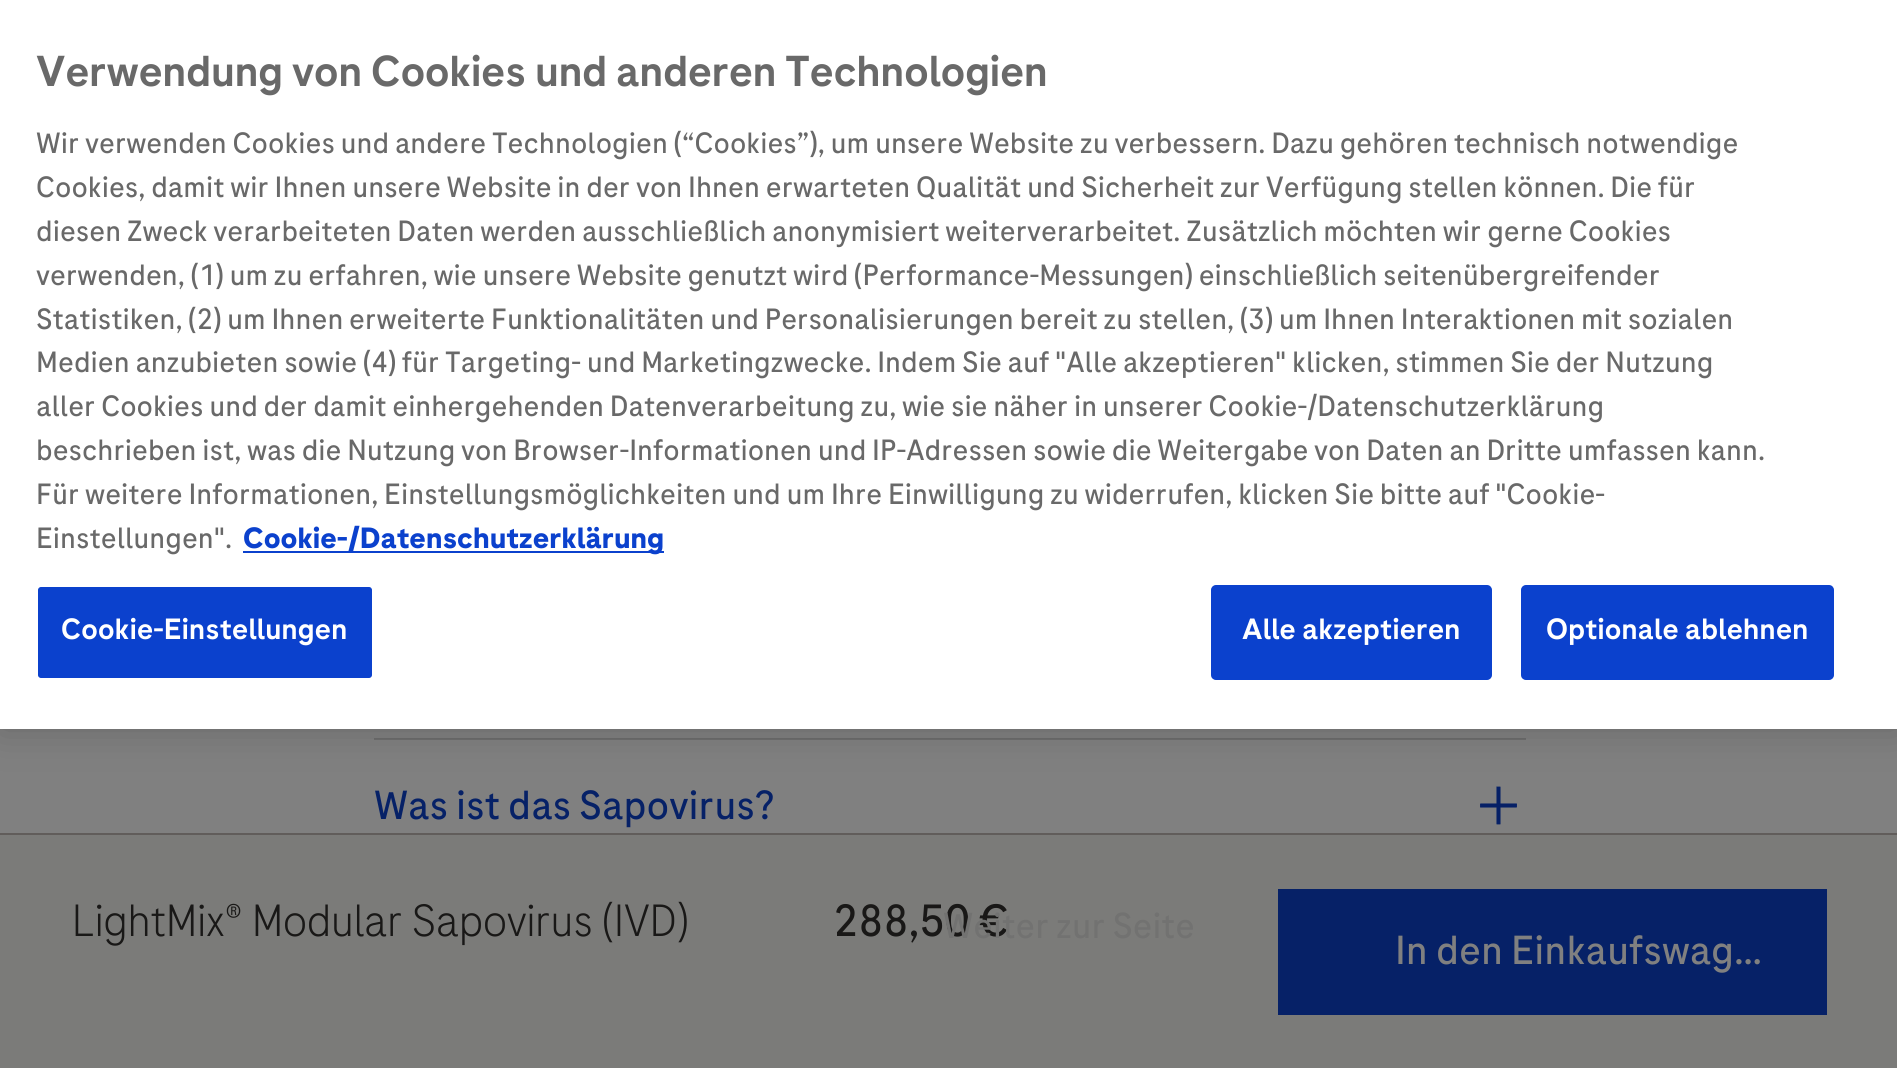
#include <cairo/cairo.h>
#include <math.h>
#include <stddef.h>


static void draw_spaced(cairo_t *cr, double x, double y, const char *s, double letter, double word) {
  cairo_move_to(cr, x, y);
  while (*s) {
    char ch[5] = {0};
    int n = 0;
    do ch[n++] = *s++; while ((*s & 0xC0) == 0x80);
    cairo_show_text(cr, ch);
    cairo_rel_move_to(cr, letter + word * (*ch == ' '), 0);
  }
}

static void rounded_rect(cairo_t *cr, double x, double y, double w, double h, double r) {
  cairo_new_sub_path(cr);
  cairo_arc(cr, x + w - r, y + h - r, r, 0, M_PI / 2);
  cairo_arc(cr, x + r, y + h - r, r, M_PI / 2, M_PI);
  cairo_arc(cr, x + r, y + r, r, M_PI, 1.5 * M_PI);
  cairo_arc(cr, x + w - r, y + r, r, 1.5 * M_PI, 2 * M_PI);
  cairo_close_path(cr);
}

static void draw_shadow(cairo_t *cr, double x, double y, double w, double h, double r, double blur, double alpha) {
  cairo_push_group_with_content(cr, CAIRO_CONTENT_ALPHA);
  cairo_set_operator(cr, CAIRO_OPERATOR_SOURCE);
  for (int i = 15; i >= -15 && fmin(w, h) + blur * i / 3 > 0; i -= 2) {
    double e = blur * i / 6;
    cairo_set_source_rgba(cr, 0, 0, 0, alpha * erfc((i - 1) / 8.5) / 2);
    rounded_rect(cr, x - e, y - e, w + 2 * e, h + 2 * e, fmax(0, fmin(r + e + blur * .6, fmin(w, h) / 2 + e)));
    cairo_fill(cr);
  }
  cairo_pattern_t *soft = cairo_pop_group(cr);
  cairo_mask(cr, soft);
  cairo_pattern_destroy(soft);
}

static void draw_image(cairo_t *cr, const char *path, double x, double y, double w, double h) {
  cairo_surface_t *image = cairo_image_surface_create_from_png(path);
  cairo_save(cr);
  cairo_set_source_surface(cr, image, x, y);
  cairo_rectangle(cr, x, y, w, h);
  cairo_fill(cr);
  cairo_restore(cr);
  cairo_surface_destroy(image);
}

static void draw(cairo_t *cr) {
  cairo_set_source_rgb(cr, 128 / 255.0, 128 / 255.0, 128 / 255.0);
  cairo_paint(cr);
  cairo_set_source_rgb(cr, 109 / 255.0, 109 / 255.0, 109 / 255.0);
  cairo_rectangle(cr, 374, 738, 1152, 2);
  cairo_fill(cr);
  draw_image(cr, "images/1.png", 1480, 786, 37, 39);
  cairo_set_source_rgb(cr, 0, 0, 0);
  draw_shadow(cr, 0, 0, 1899, 729, 0, 20, 0.2);
  cairo_set_source_rgb(cr, 1, 1, 1);
  cairo_rectangle(cr, 0, 0, 1897, 729);
  cairo_fill(cr);
  cairo_set_source_rgb(cr, 11 / 255.0, 65 / 255.0, 205 / 255.0);
  cairo_rectangle(cr, 243, 551, 421, 2);
  cairo_fill(cr);
  rounded_rect(cr, 37, 586, 336, 93, 4);
  cairo_fill_preserve(cr);
  cairo_set_source_rgb(cr, 1, 1, 1);
  cairo_stroke(cr);
  cairo_set_source_rgb(cr, 11 / 255.0, 65 / 255.0, 205 / 255.0);
  rounded_rect(cr, 1212, 586, 279, 93, 4);
  cairo_fill_preserve(cr);
  cairo_stroke(cr);
  rounded_rect(cr, 1522, 586, 311, 93, 4);
  cairo_fill_preserve(cr);
  cairo_stroke(cr);
  cairo_set_source_rgb(cr, 123 / 255.0, 123 / 255.0, 121 / 255.0);
  cairo_rectangle(cr, 0, 835, 1897, 233);
  cairo_fill(cr);
  cairo_set_source_rgb(cr, 97 / 255.0, 93 / 255.0, 91 / 255.0);
  cairo_rectangle(cr, 0, 833, 1897, 2);
  cairo_fill(cr);
  cairo_set_source_rgb(cr, 6 / 255.0, 33 / 255.0, 103 / 255.0);
  cairo_rectangle(cr, 1278, 889, 549, 126);
  cairo_fill(cr);
  cairo_select_font_face(cr, "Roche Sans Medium", CAIRO_FONT_SLANT_NORMAL, CAIRO_FONT_WEIGHT_NORMAL);
  cairo_set_font_size(cr, 43.2);
  cairo_set_source_rgb(cr, 105 / 255.0, 105 / 255.0, 105 / 255.0);
  cairo_move_to(cr, 36, 86);
  cairo_show_text(cr, "Verwendung von Cookies und anderen Technologien");
  cairo_select_font_face(cr, "Roche Sans", CAIRO_FONT_SLANT_NORMAL, CAIRO_FONT_WEIGHT_NORMAL);
  cairo_set_font_size(cr, 29.27);
  cairo_move_to(cr, 36, 153);
  cairo_show_text(cr, "Wir verwenden Cookies und andere Technologien (“Cookies”), um unsere Website zu verbessern. Dazu gehören technisch notwendige");
  cairo_move_to(cr, 36, 197);
  cairo_show_text(cr, "Cookies, damit wir Ihnen unsere Website in der von Ihnen erwarteten Qualität und Sicherheit zur Verfügung stellen können. Die für");
  cairo_move_to(cr, 36, 241);
  cairo_show_text(cr, "diesen Zweck verarbeiteten Daten werden ausschließlich anonymisiert weiterverarbeitet. Zusätzlich möchten wir gerne Cookies");
  cairo_move_to(cr, 36, 285);
  cairo_show_text(cr, "verwenden, (1) um zu erfahren, wie unsere Website genutzt wird (Performance-Messungen) einschließlich seitenübergreifender");
  cairo_move_to(cr, 36, 329);
  cairo_show_text(cr, "Statistiken, (2) um Ihnen erweiterte Funktionalitäten und Personalisierungen bereit zu stellen, (3) um Ihnen Interaktionen mit sozialen");
  cairo_move_to(cr, 36, 372);
  cairo_show_text(cr, "Medien anzubieten sowie (4) für Targeting- und Marketingzwecke. Indem Sie auf \"Alle akzeptieren\" klicken, stimmen Sie der Nutzung");
  cairo_move_to(cr, 36, 416);
  cairo_show_text(cr, "aller Cookies und der damit einhergehenden Datenverarbeitung zu, wie sie näher in unserer Cookie-/Datenschutzerklärung");
  cairo_move_to(cr, 36, 460);
  cairo_show_text(cr, "beschrieben ist, was die Nutzung von Browser-Informationen und IP-Adressen sowie die Weitergabe von Daten an Dritte umfassen kann.");
  cairo_move_to(cr, 36, 504);
  cairo_show_text(cr, "Für weitere Informationen, Einstellungsmöglichkeiten und um Ihre Einwilligung zu widerrufen, klicken Sie bitte auf \"Cookie-");
  cairo_move_to(cr, 36, 548);
  cairo_show_text(cr, "Einstellungen\".");
  cairo_select_font_face(cr, "Roche Sans", CAIRO_FONT_SLANT_NORMAL, CAIRO_FONT_WEIGHT_BOLD);
  cairo_set_source_rgb(cr, 11 / 255.0, 65 / 255.0, 205 / 255.0);
  cairo_move_to(cr, 243, 548);
  cairo_show_text(cr, "Cookie-/Datenschutzerklärung");
  cairo_select_font_face(cr, "Roche Sans Medium", CAIRO_FONT_SLANT_NORMAL, CAIRO_FONT_WEIGHT_NORMAL);
  cairo_set_source_rgb(cr, 1, 1, 1);
  draw_spaced(cr, 61, 639, "Cookie-Einstellungen", 0.25, 0);
  draw_spaced(cr, 1242, 639, "Alle akzeptieren", 0.25, 0);
  draw_spaced(cr, 1546, 639, "Optionale ablehnen", 0.25, 0);
  cairo_select_font_face(cr, "Roche Sans", CAIRO_FONT_SLANT_NORMAL, CAIRO_FONT_WEIGHT_NORMAL);
  cairo_set_font_size(cr, 40.5);
  cairo_set_source_rgb(cr, 6 / 255.0, 33 / 255.0, 103 / 255.0);
  cairo_move_to(cr, 374, 819);
  cairo_show_text(cr, "Was ist das Sapovirus?");
  cairo_select_font_face(cr, "Roche Sans Light", CAIRO_FONT_SLANT_NORMAL, CAIRO_FONT_WEIGHT_NORMAL);
  cairo_set_font_size(cr, 45);
  cairo_set_source_rgb(cr, 25 / 255.0, 24 / 255.0, 23 / 255.0);
  cairo_move_to(cr, 72, 936);
  cairo_show_text(cr, "LightMix® Modular Sapovirus (IVD)");
  cairo_select_font_face(cr, "Roche Sans", CAIRO_FONT_SLANT_NORMAL, CAIRO_FONT_WEIGHT_NORMAL);
  cairo_move_to(cr, 833, 936);
  cairo_show_text(cr, "288,50 €");
  cairo_set_font_size(cr, 40.5);
  cairo_set_source_rgb(cr, 128 / 255.0, 128 / 255.0, 128 / 255.0);
  cairo_move_to(cr, 1395, 964);
  cairo_show_text(cr, "In den Einkaufswag…");
  cairo_set_font_size(cr, 36);
  cairo_set_source_rgb(cr, 114 / 255.0, 114 / 255.0, 113 / 255.0);
  cairo_move_to(cr, 943, 938);
  cairo_show_text(cr, "Weiter zur Seite");
}

int main(void) {
  cairo_surface_t *surface = cairo_image_surface_create(CAIRO_FORMAT_RGB24, 1897, 1068);
  cairo_t *cr = cairo_create(surface);
  cairo_font_options_t *options = cairo_font_options_create();
  cairo_font_options_set_hint_metrics(options, CAIRO_HINT_METRICS_OFF);
  cairo_font_options_set_hint_style(options, CAIRO_HINT_STYLE_NONE);
  cairo_set_font_options(cr, options);
  cairo_set_miter_limit(cr, 4);
  draw(cr);
  cairo_surface_write_to_png(surface, "out.png");
  cairo_font_options_destroy(options);
  cairo_destroy(cr);
  cairo_surface_destroy(surface);
  return 0;
}
